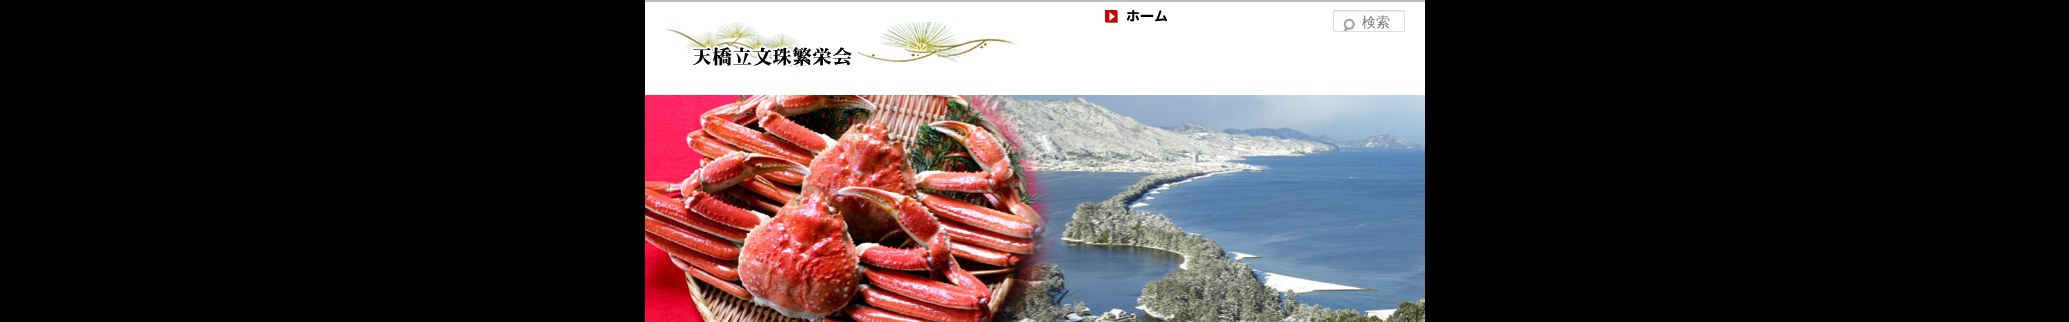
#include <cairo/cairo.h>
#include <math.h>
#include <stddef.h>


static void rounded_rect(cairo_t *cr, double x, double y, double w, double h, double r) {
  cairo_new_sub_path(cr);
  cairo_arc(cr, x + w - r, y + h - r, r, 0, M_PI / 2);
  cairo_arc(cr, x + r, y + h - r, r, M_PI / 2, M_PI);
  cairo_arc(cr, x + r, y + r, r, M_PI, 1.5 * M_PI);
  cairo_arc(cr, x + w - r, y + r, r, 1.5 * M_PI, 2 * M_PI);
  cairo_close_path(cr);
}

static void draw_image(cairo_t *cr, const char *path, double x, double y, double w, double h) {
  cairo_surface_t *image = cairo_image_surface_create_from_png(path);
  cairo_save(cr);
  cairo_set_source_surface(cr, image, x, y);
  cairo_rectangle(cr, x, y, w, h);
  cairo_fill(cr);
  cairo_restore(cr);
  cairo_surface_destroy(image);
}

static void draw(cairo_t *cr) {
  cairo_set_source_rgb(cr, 0, 0, 0);
  cairo_paint(cr);
  cairo_set_source_rgb(cr, 1, 1, 1);
  cairo_rectangle(cr, 645, 2, 780, 93);
  cairo_fill(cr);
  cairo_set_source_rgb(cr, 187 / 255.0, 187 / 255.0, 187 / 255.0);
  cairo_rectangle(cr, 645, 0, 780, 2);
  cairo_fill(cr);
  draw_image(cr, "images/1.png", 665, 22, 356, 45);
  draw_image(cr, "images/2.png", 1105, 10, 62, 13);
  draw_image(cr, "images/3.png", 1343, 18, 12, 13);
  cairo_set_source_rgb(cr, 230 / 255.0, 230 / 255.0, 230 / 255.0);
  cairo_new_path(cr);
  cairo_move_to(cr, 1335, 12);
  cairo_line_to(cr, 1403, 12);
  cairo_curve_to(cr, 1404, 12, 1404, 12, 1404, 13);
  cairo_curve_to(cr, 1404, 12, 1404, 11, 1403, 11);
  cairo_line_to(cr, 1346, 11);
  cairo_curve_to(cr, 1343, 11, 1334, 8, 1334, 13);
  cairo_curve_to(cr, 1334, 12, 1334, 12, 1335, 12);
  cairo_close_path(cr);
  cairo_fill(cr);
  rounded_rect(cr, 1333.5, 10.5, 71, 21, 1.5);
  cairo_set_source_rgb(cr, 221 / 255.0, 221 / 255.0, 221 / 255.0);
  cairo_set_line_width(cr, 1);
  cairo_stroke(cr);
  draw_image(cr, "images/4.png", 645, 95, 780, 227);
  cairo_select_font_face(cr, "WenQuanYi Zen Hei Medium", CAIRO_FONT_SLANT_NORMAL, CAIRO_FONT_WEIGHT_NORMAL);
  cairo_set_font_size(cr, 14);
  cairo_set_source_rgb(cr, 117 / 255.0, 117 / 255.0, 117 / 255.0);
  cairo_move_to(cr, 1362, 27);
  cairo_show_text(cr, "検索");
}

int main(void) {
  cairo_surface_t *surface = cairo_image_surface_create(CAIRO_FORMAT_RGB24, 2069, 322);
  cairo_t *cr = cairo_create(surface);
  cairo_font_options_t *options = cairo_font_options_create();
  cairo_font_options_set_hint_metrics(options, CAIRO_HINT_METRICS_OFF);
  cairo_font_options_set_hint_style(options, CAIRO_HINT_STYLE_NONE);
  cairo_set_font_options(cr, options);
  cairo_set_miter_limit(cr, 4);
  draw(cr);
  cairo_surface_write_to_png(surface, "out.png");
  cairo_font_options_destroy(options);
  cairo_destroy(cr);
  cairo_surface_destroy(surface);
  return 0;
}
